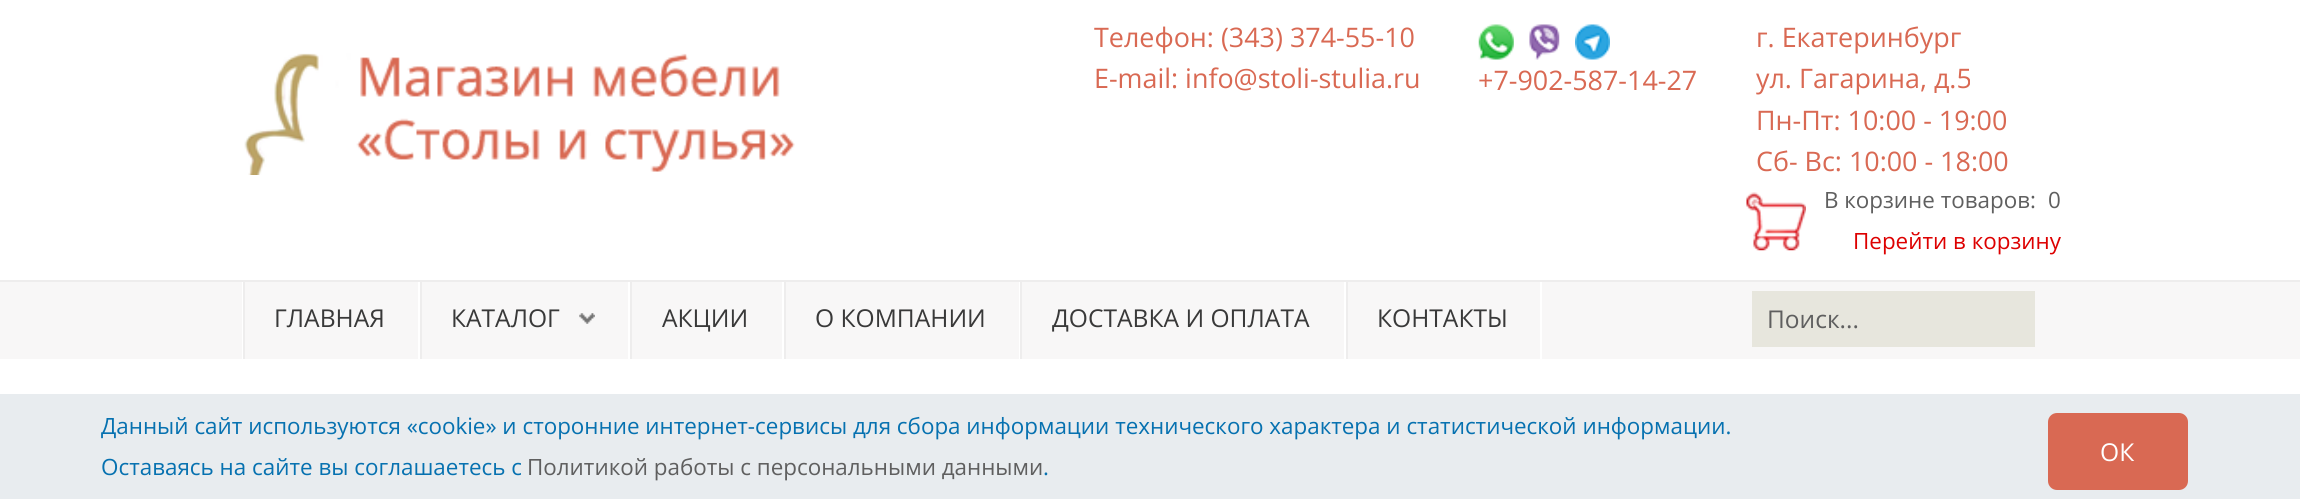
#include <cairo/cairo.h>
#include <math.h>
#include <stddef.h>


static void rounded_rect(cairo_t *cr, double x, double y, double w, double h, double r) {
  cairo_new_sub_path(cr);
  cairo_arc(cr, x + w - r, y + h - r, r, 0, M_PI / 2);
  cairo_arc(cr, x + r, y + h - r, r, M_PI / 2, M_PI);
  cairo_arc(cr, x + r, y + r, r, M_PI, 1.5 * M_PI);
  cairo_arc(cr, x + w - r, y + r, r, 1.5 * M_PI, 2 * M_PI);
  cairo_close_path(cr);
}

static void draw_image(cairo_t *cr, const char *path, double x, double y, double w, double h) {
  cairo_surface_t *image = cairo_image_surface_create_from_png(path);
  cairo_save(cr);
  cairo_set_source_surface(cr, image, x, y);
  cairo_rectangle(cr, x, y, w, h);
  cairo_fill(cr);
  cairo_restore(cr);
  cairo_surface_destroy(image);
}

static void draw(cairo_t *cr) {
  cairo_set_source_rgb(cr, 1, 1, 1);
  cairo_paint(cr);
  draw_image(cr, "images/1.png", 244, 53, 551, 122);
  draw_image(cr, "images/2.png", 1478, 24, 36, 36);
  draw_image(cr, "images/3.png", 1529, 24, 31, 36);
  draw_image(cr, "images/4.png", 1575, 24, 35, 36);
  draw_image(cr, "images/5.png", 1746, 192, 60, 59);
  cairo_set_source_rgb(cr, 248 / 255.0, 247 / 255.0, 247 / 255.0);
  cairo_rectangle(cr, 0, 282, 2300, 77);
  cairo_fill(cr);
  cairo_set_source_rgb(cr, 238 / 255.0, 237 / 255.0, 237 / 255.0);
  cairo_rectangle(cr, 0, 280, 2300, 2);
  cairo_fill(cr);
  cairo_set_source_rgb(cr, 1, 1, 1);
  cairo_rectangle(cr, 242, 282, 1, 77);
  cairo_fill(cr);
  cairo_rectangle(cr, 418, 282, 2, 77);
  cairo_fill(cr);
  cairo_set_source_rgb(cr, 238 / 255.0, 237 / 255.0, 237 / 255.0);
  cairo_rectangle(cr, 243, 282, 2, 77);
  cairo_fill(cr);
  cairo_set_source_rgb(cr, 1, 1, 1);
  cairo_rectangle(cr, 628, 282, 2, 77);
  cairo_fill(cr);
  cairo_set_source_rgb(cr, 238 / 255.0, 237 / 255.0, 237 / 255.0);
  cairo_rectangle(cr, 420, 282, 2, 77);
  cairo_fill(cr);
  draw_image(cr, "images/6.png", 579, 313, 16, 11);
  cairo_set_source_rgb(cr, 1, 1, 1);
  cairo_rectangle(cr, 782, 282, 2, 77);
  cairo_fill(cr);
  cairo_set_source_rgb(cr, 238 / 255.0, 237 / 255.0, 237 / 255.0);
  cairo_rectangle(cr, 630, 282, 2, 77);
  cairo_fill(cr);
  cairo_set_source_rgb(cr, 1, 1, 1);
  cairo_rectangle(cr, 1019, 282, 1, 77);
  cairo_fill(cr);
  cairo_set_source_rgb(cr, 238 / 255.0, 237 / 255.0, 237 / 255.0);
  cairo_rectangle(cr, 784, 282, 2, 77);
  cairo_fill(cr);
  cairo_set_source_rgb(cr, 1, 1, 1);
  cairo_rectangle(cr, 1344, 282, 2, 77);
  cairo_fill(cr);
  cairo_set_source_rgb(cr, 238 / 255.0, 237 / 255.0, 237 / 255.0);
  cairo_rectangle(cr, 1020, 282, 2, 77);
  cairo_fill(cr);
  cairo_set_source_rgb(cr, 1, 1, 1);
  cairo_rectangle(cr, 1540, 282, 2, 77);
  cairo_fill(cr);
  cairo_set_source_rgb(cr, 238 / 255.0, 237 / 255.0, 237 / 255.0);
  cairo_rectangle(cr, 1346, 282, 2, 77);
  cairo_fill(cr);
  cairo_set_source_rgb(cr, 231 / 255.0, 230 / 255.0, 221 / 255.0);
  cairo_rectangle(cr, 1752, 291, 283, 56);
  cairo_fill(cr);
  cairo_set_source_rgb(cr, 232 / 255.0, 236 / 255.0, 239 / 255.0);
  cairo_rectangle(cr, 0, 394, 2300, 105);
  cairo_fill(cr);
  cairo_set_source_rgb(cr, 217 / 255.0, 105 / 255.0, 83 / 255.0);
  rounded_rect(cr, 2048, 413, 140, 77, 9);
  cairo_fill(cr);
  cairo_select_font_face(cr, "Open Sans", CAIRO_FONT_SLANT_NORMAL, CAIRO_FONT_WEIGHT_NORMAL);
  cairo_set_font_size(cr, 26.9);
  cairo_move_to(cr, 1094, 47);
  cairo_show_text(cr, "Телефон: (343) 374-55-10");
  cairo_move_to(cr, 1094, 88);
  cairo_show_text(cr, "E-mail: info@stoli-stulia.ru");
  cairo_move_to(cr, 1478, 90);
  cairo_show_text(cr, "+7-902-587-14-27");
  cairo_move_to(cr, 1756, 47);
  cairo_show_text(cr, "г. Екатеринбург");
  cairo_move_to(cr, 1756, 88);
  cairo_show_text(cr, "ул. Гагарина, д.5");
  cairo_move_to(cr, 1756, 130);
  cairo_show_text(cr, "Пн-Пт: 10:00 - 19:00");
  cairo_move_to(cr, 1756, 171);
  cairo_show_text(cr, "Сб- Вс: 10:00 - 18:00");
  cairo_set_font_size(cr, 22.4);
  cairo_set_source_rgb(cr, 95 / 255.0, 95 / 255.0, 95 / 255.0);
  cairo_move_to(cr, 1824, 208);
  cairo_show_text(cr, "В корзине товаров:");
  cairo_move_to(cr, 2048, 208);
  cairo_show_text(cr, "0");
  cairo_set_source_rgb(cr, 221 / 255.0, 0, 0);
  cairo_move_to(cr, 1853, 249);
  cairo_show_text(cr, "Перейти в корзину");
  cairo_set_font_size(cr, 24.6);
  cairo_set_source_rgb(cr, 57 / 255.0, 57 / 255.0, 57 / 255.0);
  cairo_move_to(cr, 274, 327);
  cairo_show_text(cr, "ГЛАВНАЯ");
  cairo_move_to(cr, 451, 327);
  cairo_show_text(cr, "КАТАЛОГ");
  cairo_move_to(cr, 662, 327);
  cairo_show_text(cr, "АКЦИИ");
  cairo_move_to(cr, 815, 327);
  cairo_show_text(cr, "О КОМПАНИИ");
  cairo_move_to(cr, 1052, 327);
  cairo_show_text(cr, "ДОСТАВКА И ОПЛАТА");
  cairo_move_to(cr, 1377, 327);
  cairo_show_text(cr, "КОНТАКТЫ");
  cairo_set_font_size(cr, 24.5);
  cairo_set_source_rgb(cr, 95 / 255.0, 95 / 255.0, 95 / 255.0);
  cairo_move_to(cr, 1767, 328);
  cairo_show_text(cr, "Поиск...");
  cairo_set_font_size(cr, 22.4);
  cairo_set_source_rgb(cr, 6 / 255.0, 113 / 255.0, 176 / 255.0);
  cairo_move_to(cr, 101, 434);
  cairo_show_text(cr, "Данный сайт используются «cookie» и сторонние интернет-сервисы для сбора информации технического характера и статистической информации.");
  cairo_set_font_size(cr, 24.6);
  cairo_set_source_rgb(cr, 1, 1, 1);
  cairo_move_to(cr, 2100, 461);
  cairo_show_text(cr, "ОК");
  cairo_set_font_size(cr, 22.4);
  cairo_set_source_rgb(cr, 6 / 255.0, 113 / 255.0, 176 / 255.0);
  cairo_move_to(cr, 101, 475);
  cairo_show_text(cr, "Оставаясь на сайте вы соглашаетесь с");
  cairo_set_source_rgb(cr, 95 / 255.0, 95 / 255.0, 95 / 255.0);
  cairo_move_to(cr, 527, 475);
  cairo_show_text(cr, "Политикой работы с персональными данными");
  cairo_set_source_rgb(cr, 6 / 255.0, 113 / 255.0, 176 / 255.0);
  cairo_move_to(cr, 1043, 475);
  cairo_show_text(cr, ".");
}

int main(void) {
  cairo_surface_t *surface = cairo_image_surface_create(CAIRO_FORMAT_RGB24, 2300, 499);
  cairo_t *cr = cairo_create(surface);
  cairo_font_options_t *options = cairo_font_options_create();
  cairo_font_options_set_hint_metrics(options, CAIRO_HINT_METRICS_OFF);
  cairo_font_options_set_hint_style(options, CAIRO_HINT_STYLE_NONE);
  cairo_set_font_options(cr, options);
  cairo_set_miter_limit(cr, 4);
  draw(cr);
  cairo_surface_write_to_png(surface, "out.png");
  cairo_font_options_destroy(options);
  cairo_destroy(cr);
  cairo_surface_destroy(surface);
  return 0;
}
